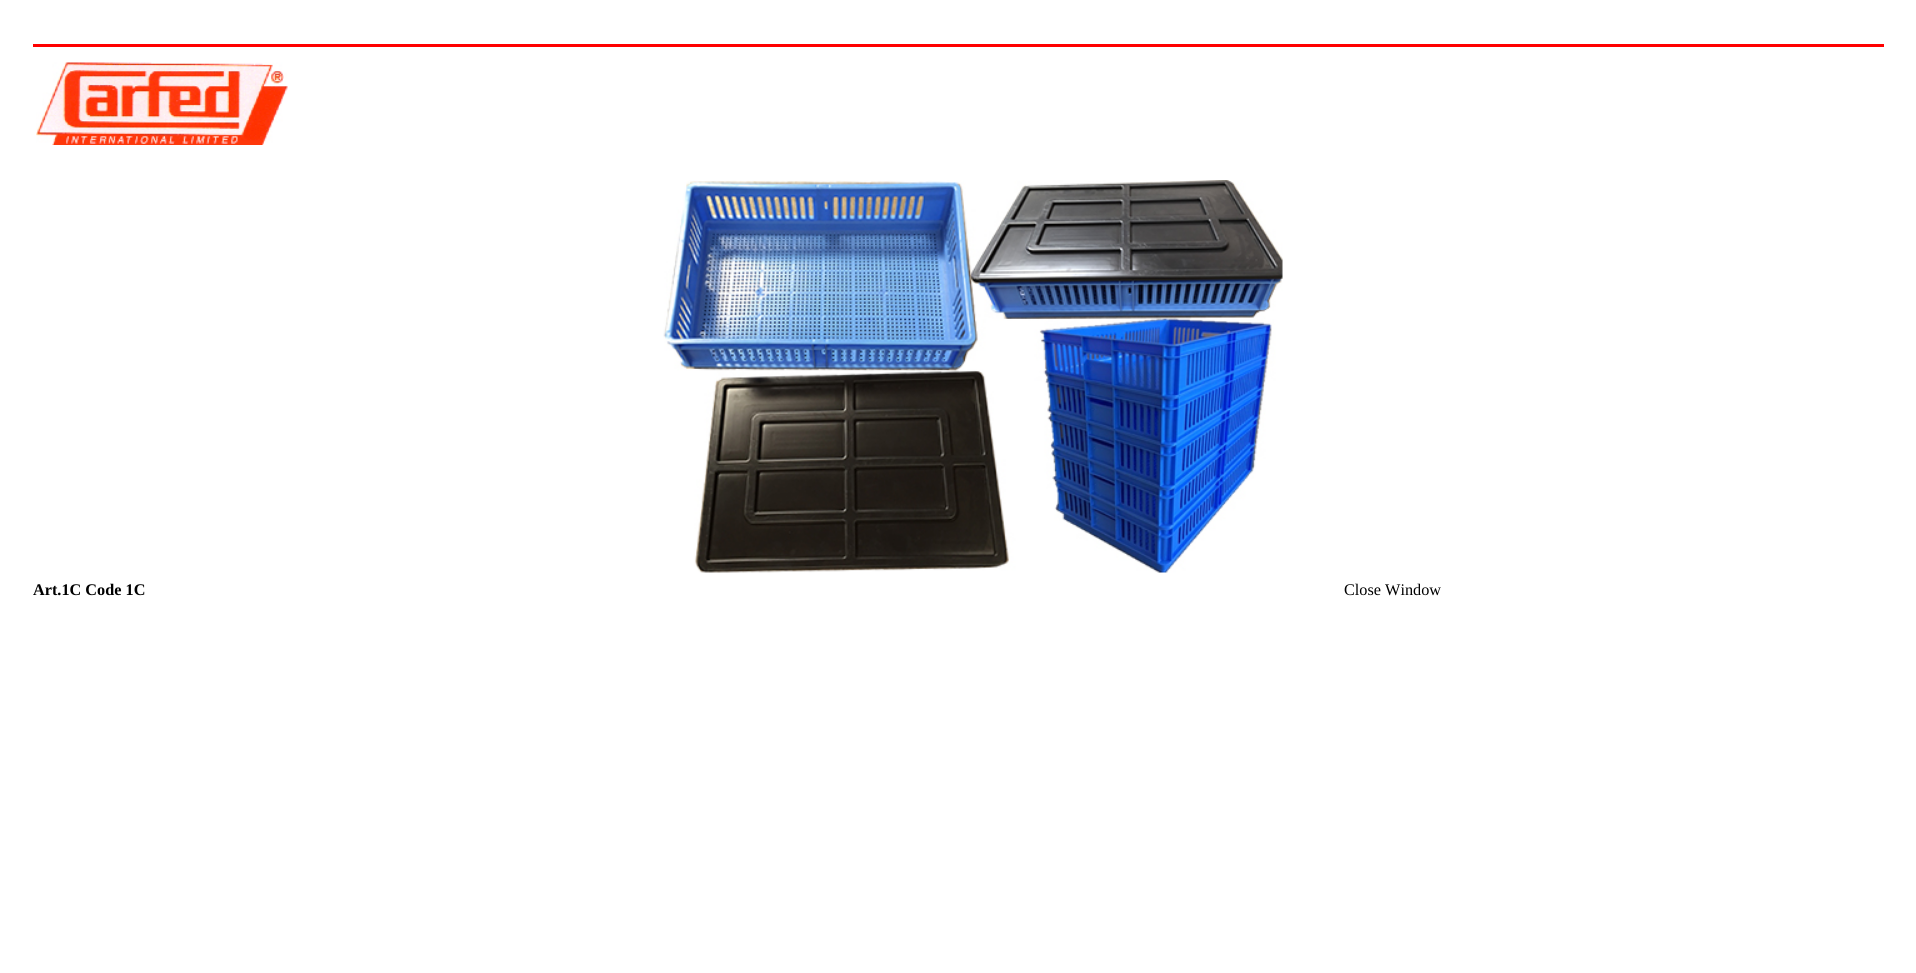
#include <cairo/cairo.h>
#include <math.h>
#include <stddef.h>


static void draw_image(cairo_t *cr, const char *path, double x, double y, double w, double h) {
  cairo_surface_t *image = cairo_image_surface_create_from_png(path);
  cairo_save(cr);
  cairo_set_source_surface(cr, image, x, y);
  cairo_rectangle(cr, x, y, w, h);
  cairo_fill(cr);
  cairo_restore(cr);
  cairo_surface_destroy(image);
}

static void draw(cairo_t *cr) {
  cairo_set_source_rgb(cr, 1, 1, 1);
  cairo_paint(cr);
  cairo_set_source_rgb(cr, 1, 0, 0);
  cairo_rectangle(cr, 33, 44, 1851, 3);
  cairo_fill(cr);
  draw_image(cr, "images/1.png", 36, 62, 252, 83);
  draw_image(cr, "images/2.png", 663, 180, 620, 393);
  cairo_select_font_face(cr, "Liberation Serif", CAIRO_FONT_SLANT_NORMAL, CAIRO_FONT_WEIGHT_BOLD);
  cairo_set_font_size(cr, 16.25);
  cairo_set_source_rgb(cr, 0, 0, 0);
  cairo_move_to(cr, 33, 595);
  cairo_show_text(cr, "Art.1C Code 1C");
  cairo_select_font_face(cr, "Liberation Serif", CAIRO_FONT_SLANT_NORMAL, CAIRO_FONT_WEIGHT_NORMAL);
  cairo_move_to(cr, 1344, 595);
  cairo_show_text(cr, "Close Window");
}

int main(void) {
  cairo_surface_t *surface = cairo_image_surface_create(CAIRO_FORMAT_RGB24, 1916, 973);
  cairo_t *cr = cairo_create(surface);
  cairo_font_options_t *options = cairo_font_options_create();
  cairo_font_options_set_hint_metrics(options, CAIRO_HINT_METRICS_OFF);
  cairo_font_options_set_hint_style(options, CAIRO_HINT_STYLE_NONE);
  cairo_set_font_options(cr, options);
  cairo_set_miter_limit(cr, 4);
  draw(cr);
  cairo_surface_write_to_png(surface, "out.png");
  cairo_font_options_destroy(options);
  cairo_destroy(cr);
  cairo_surface_destroy(surface);
  return 0;
}
